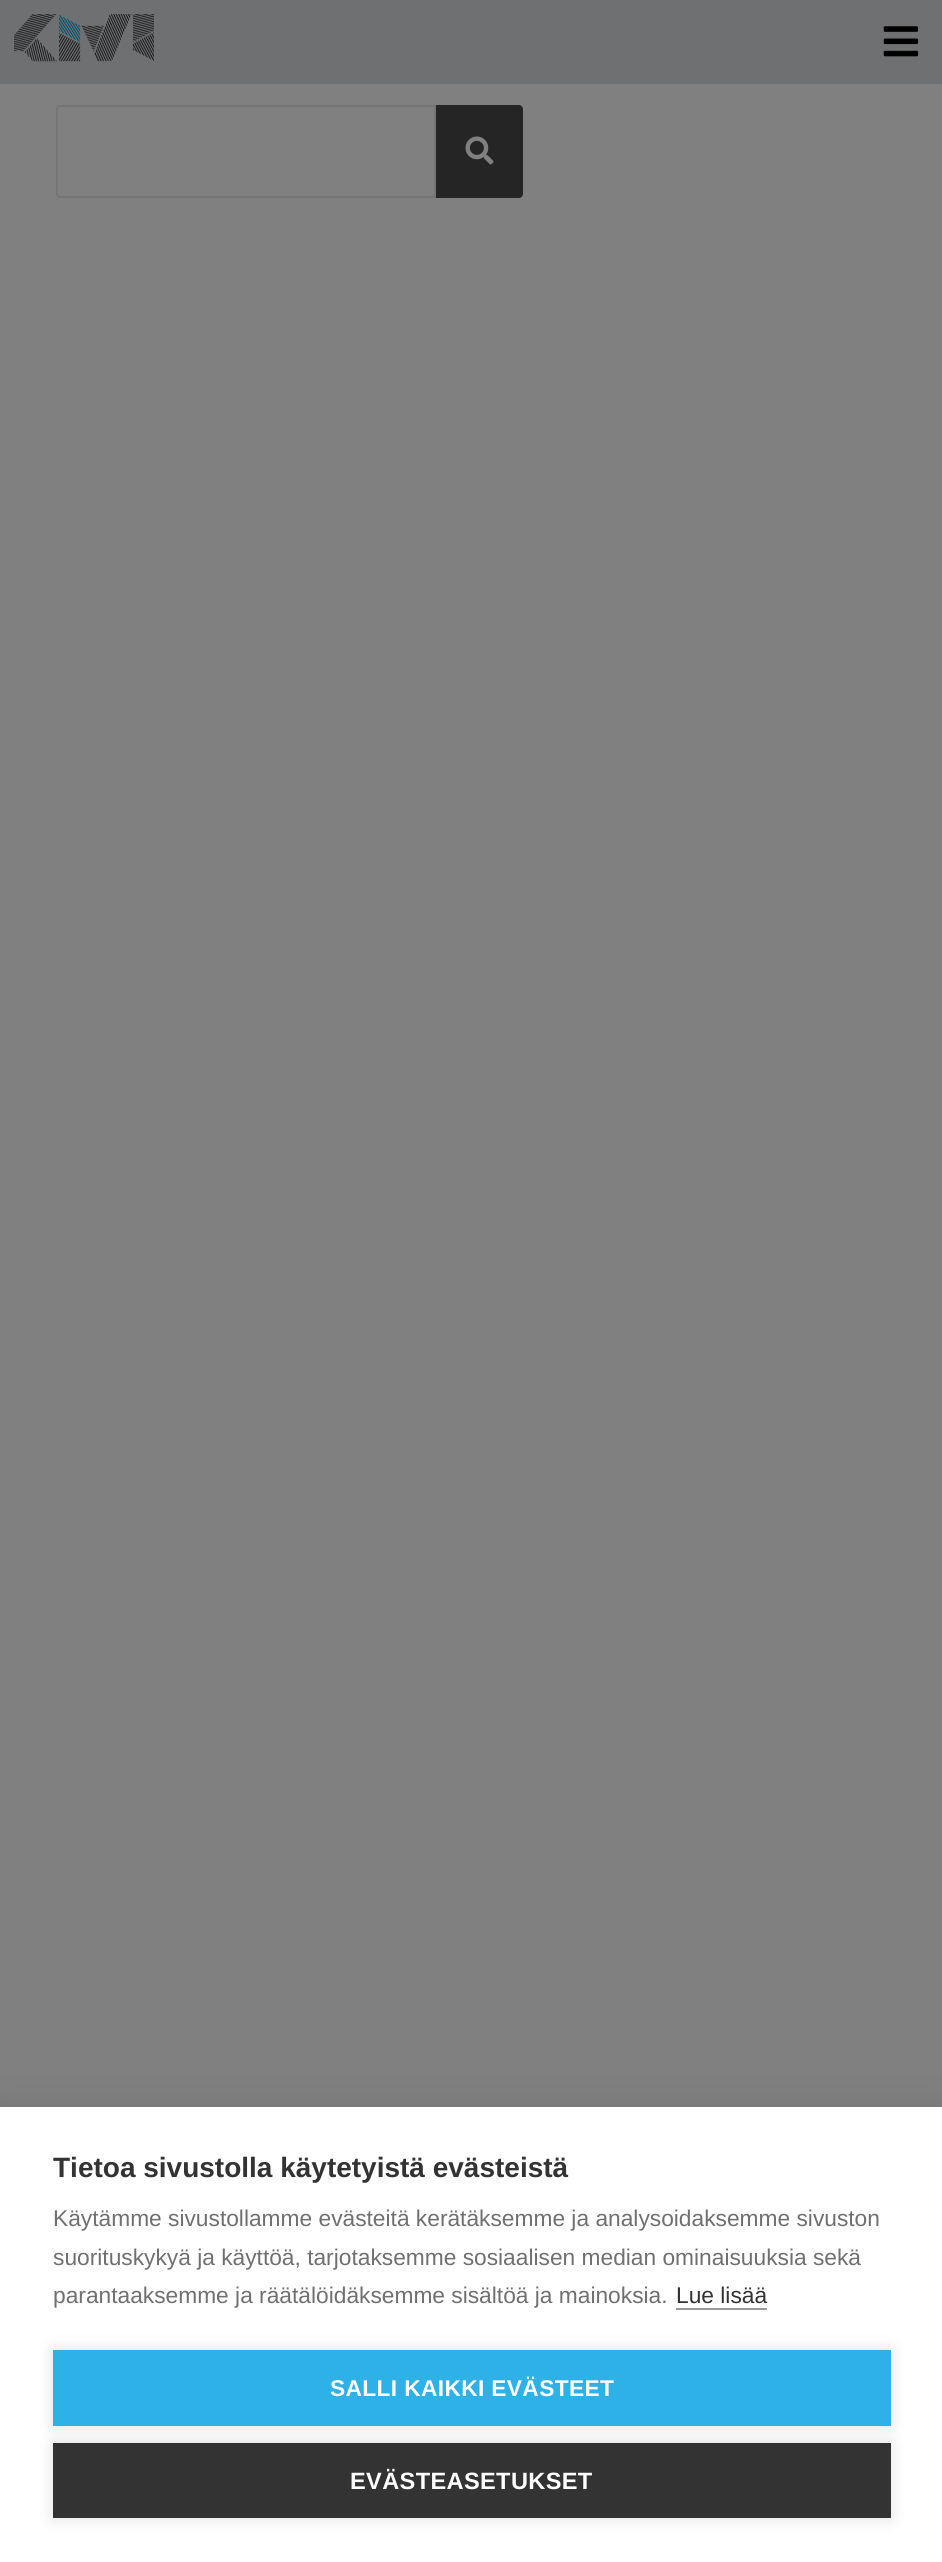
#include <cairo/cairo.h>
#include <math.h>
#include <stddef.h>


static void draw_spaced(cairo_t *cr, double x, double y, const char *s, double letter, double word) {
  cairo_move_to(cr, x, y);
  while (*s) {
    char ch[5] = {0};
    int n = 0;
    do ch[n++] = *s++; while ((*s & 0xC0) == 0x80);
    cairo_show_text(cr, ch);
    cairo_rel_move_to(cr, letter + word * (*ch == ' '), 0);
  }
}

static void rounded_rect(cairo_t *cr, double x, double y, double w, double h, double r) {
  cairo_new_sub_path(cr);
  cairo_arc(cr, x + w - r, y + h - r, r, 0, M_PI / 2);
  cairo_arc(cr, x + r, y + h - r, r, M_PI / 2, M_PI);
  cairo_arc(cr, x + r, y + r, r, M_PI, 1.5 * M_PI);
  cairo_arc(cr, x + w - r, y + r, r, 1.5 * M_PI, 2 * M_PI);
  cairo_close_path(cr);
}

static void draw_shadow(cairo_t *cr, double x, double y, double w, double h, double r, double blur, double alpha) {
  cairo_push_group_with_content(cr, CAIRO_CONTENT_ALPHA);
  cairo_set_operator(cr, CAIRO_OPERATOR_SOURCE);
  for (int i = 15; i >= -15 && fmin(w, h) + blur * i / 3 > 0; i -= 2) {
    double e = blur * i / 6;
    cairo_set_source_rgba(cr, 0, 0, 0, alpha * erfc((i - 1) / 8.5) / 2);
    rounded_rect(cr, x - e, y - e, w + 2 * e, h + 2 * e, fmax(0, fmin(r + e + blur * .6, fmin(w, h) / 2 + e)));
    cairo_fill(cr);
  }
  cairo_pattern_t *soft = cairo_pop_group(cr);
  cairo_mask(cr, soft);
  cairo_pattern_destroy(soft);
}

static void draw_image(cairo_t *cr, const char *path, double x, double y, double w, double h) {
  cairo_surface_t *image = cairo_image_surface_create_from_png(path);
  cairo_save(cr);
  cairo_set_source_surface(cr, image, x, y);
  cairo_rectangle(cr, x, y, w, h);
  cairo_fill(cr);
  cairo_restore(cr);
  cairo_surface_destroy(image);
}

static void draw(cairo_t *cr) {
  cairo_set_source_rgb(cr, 128 / 255.0, 128 / 255.0, 128 / 255.0);
  cairo_paint(cr);
  cairo_set_source_rgb(cr, 111 / 255.0, 112 / 255.0, 113 / 255.0);
  cairo_rectangle(cr, 0, 0, 942, 84);
  cairo_fill(cr);
  draw_image(cr, "images/1.png", 14, 14, 140, 48);
  draw_image(cr, "images/2.png", 883, 26, 36, 31);
  cairo_new_path(cr);
  cairo_move_to(cr, 60, 106);
  cairo_line_to(cr, 435, 106);
  cairo_line_to(cr, 435, 197);
  cairo_line_to(cr, 60, 197);
  cairo_curve_to(cr, 58.5, 197, 57, 195.5, 57, 194);
  cairo_line_to(cr, 57, 109);
  cairo_curve_to(cr, 57, 107.5, 58.5, 106, 60, 106);
  cairo_close_path(cr);
  cairo_set_source_rgb(cr, 117 / 255.0, 117 / 255.0, 118 / 255.0);
  cairo_stroke(cr);
  cairo_set_source_rgb(cr, 38 / 255.0, 37 / 255.0, 37 / 255.0);
  cairo_new_path(cr);
  cairo_move_to(cr, 437, 106);
  cairo_line_to(cr, 519, 106);
  cairo_curve_to(cr, 520.5, 106, 522, 107.5, 522, 109);
  cairo_line_to(cr, 522, 194);
  cairo_curve_to(cr, 522, 195.5, 520.5, 197, 519, 197);
  cairo_line_to(cr, 437, 197);
  cairo_close_path(cr);
  cairo_fill_preserve(cr);
  cairo_stroke(cr);
  draw_image(cr, "images/3.png", 465, 136, 29, 29);
  cairo_set_source_rgb(cr, 0, 0, 0);
  draw_shadow(cr, 0, 2107, 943, 455, 0, 17.5, 0.1);
  cairo_set_source_rgb(cr, 1, 1, 1);
  cairo_rectangle(cr, 0, 2107, 942, 455);
  cairo_fill(cr);
  cairo_set_source_rgb(cr, 153 / 255.0, 153 / 255.0, 153 / 255.0);
  cairo_rectangle(cr, 676, 2308, 91, 2);
  cairo_fill(cr);
  cairo_set_source_rgb(cr, 0, 0, 0);
  draw_shadow(cr, 53, 2350, 838, 76, 0, 9, 0.12);
  cairo_set_source_rgb(cr, 45 / 255.0, 177 / 255.0, 230 / 255.0);
  cairo_rectangle(cr, 53, 2350, 838, 76);
  cairo_fill(cr);
  cairo_set_source_rgb(cr, 0, 0, 0);
  draw_shadow(cr, 53, 2443, 838, 75, 0, 9, 0.12);
  cairo_set_source_rgb(cr, 51 / 255.0, 51 / 255.0, 51 / 255.0);
  cairo_rectangle(cr, 53, 2443, 838, 75);
  cairo_fill(cr);
  cairo_save(cr);
  cairo_rectangle(cr, 53, 2151, 838, 164);
  cairo_clip(cr);
  cairo_select_font_face(cr, "Liberation Sans", CAIRO_FONT_SLANT_NORMAL, CAIRO_FONT_WEIGHT_BOLD);
  cairo_set_font_size(cr, 28);
  cairo_move_to(cr, 53, 2177);
  cairo_show_text(cr, "Tietoa sivustolla käytetyistä evästeistä");
  cairo_restore(cr);
  cairo_select_font_face(cr, "Liberation Sans", CAIRO_FONT_SLANT_NORMAL, CAIRO_FONT_WEIGHT_NORMAL);
  cairo_set_font_size(cr, 22.75);
  cairo_set_source_rgb(cr, 112 / 255.0, 112 / 255.0, 112 / 255.0);
  cairo_move_to(cr, 53, 2226);
  cairo_show_text(cr, "Käytämme sivustollamme evästeitä kerätäksemme ja analysoidaksemme sivuston");
  cairo_move_to(cr, 53, 2265);
  cairo_show_text(cr, "suorituskykyä ja käyttöä, tarjotaksemme sosiaalisen median ominaisuuksia sekä");
  cairo_move_to(cr, 53, 2303);
  cairo_show_text(cr, "parantaaksemme ja räätälöidäksemme sisältöä ja mainoksia.");
  cairo_set_source_rgb(cr, 51 / 255.0, 51 / 255.0, 51 / 255.0);
  cairo_move_to(cr, 676, 2303);
  cairo_show_text(cr, "Lue lisää");
  cairo_select_font_face(cr, "Liberation Sans", CAIRO_FONT_SLANT_NORMAL, CAIRO_FONT_WEIGHT_BOLD);
  cairo_set_source_rgb(cr, 1, 1, 1);
  draw_spaced(cr, 330, 2396, "SALLI KAIKKI EVÄSTEET", 0.35, 0);
  cairo_set_font_size(cr, 23.6);
  draw_spaced(cr, 350, 2489, "EVÄSTEASETUKSET", 0.35, 0);
}

int main(void) {
  cairo_surface_t *surface = cairo_image_surface_create(CAIRO_FORMAT_RGB24, 942, 2562);
  cairo_t *cr = cairo_create(surface);
  cairo_font_options_t *options = cairo_font_options_create();
  cairo_font_options_set_hint_metrics(options, CAIRO_HINT_METRICS_OFF);
  cairo_font_options_set_hint_style(options, CAIRO_HINT_STYLE_NONE);
  cairo_set_font_options(cr, options);
  cairo_set_miter_limit(cr, 4);
  draw(cr);
  cairo_surface_write_to_png(surface, "out.png");
  cairo_font_options_destroy(options);
  cairo_destroy(cr);
  cairo_surface_destroy(surface);
  return 0;
}
